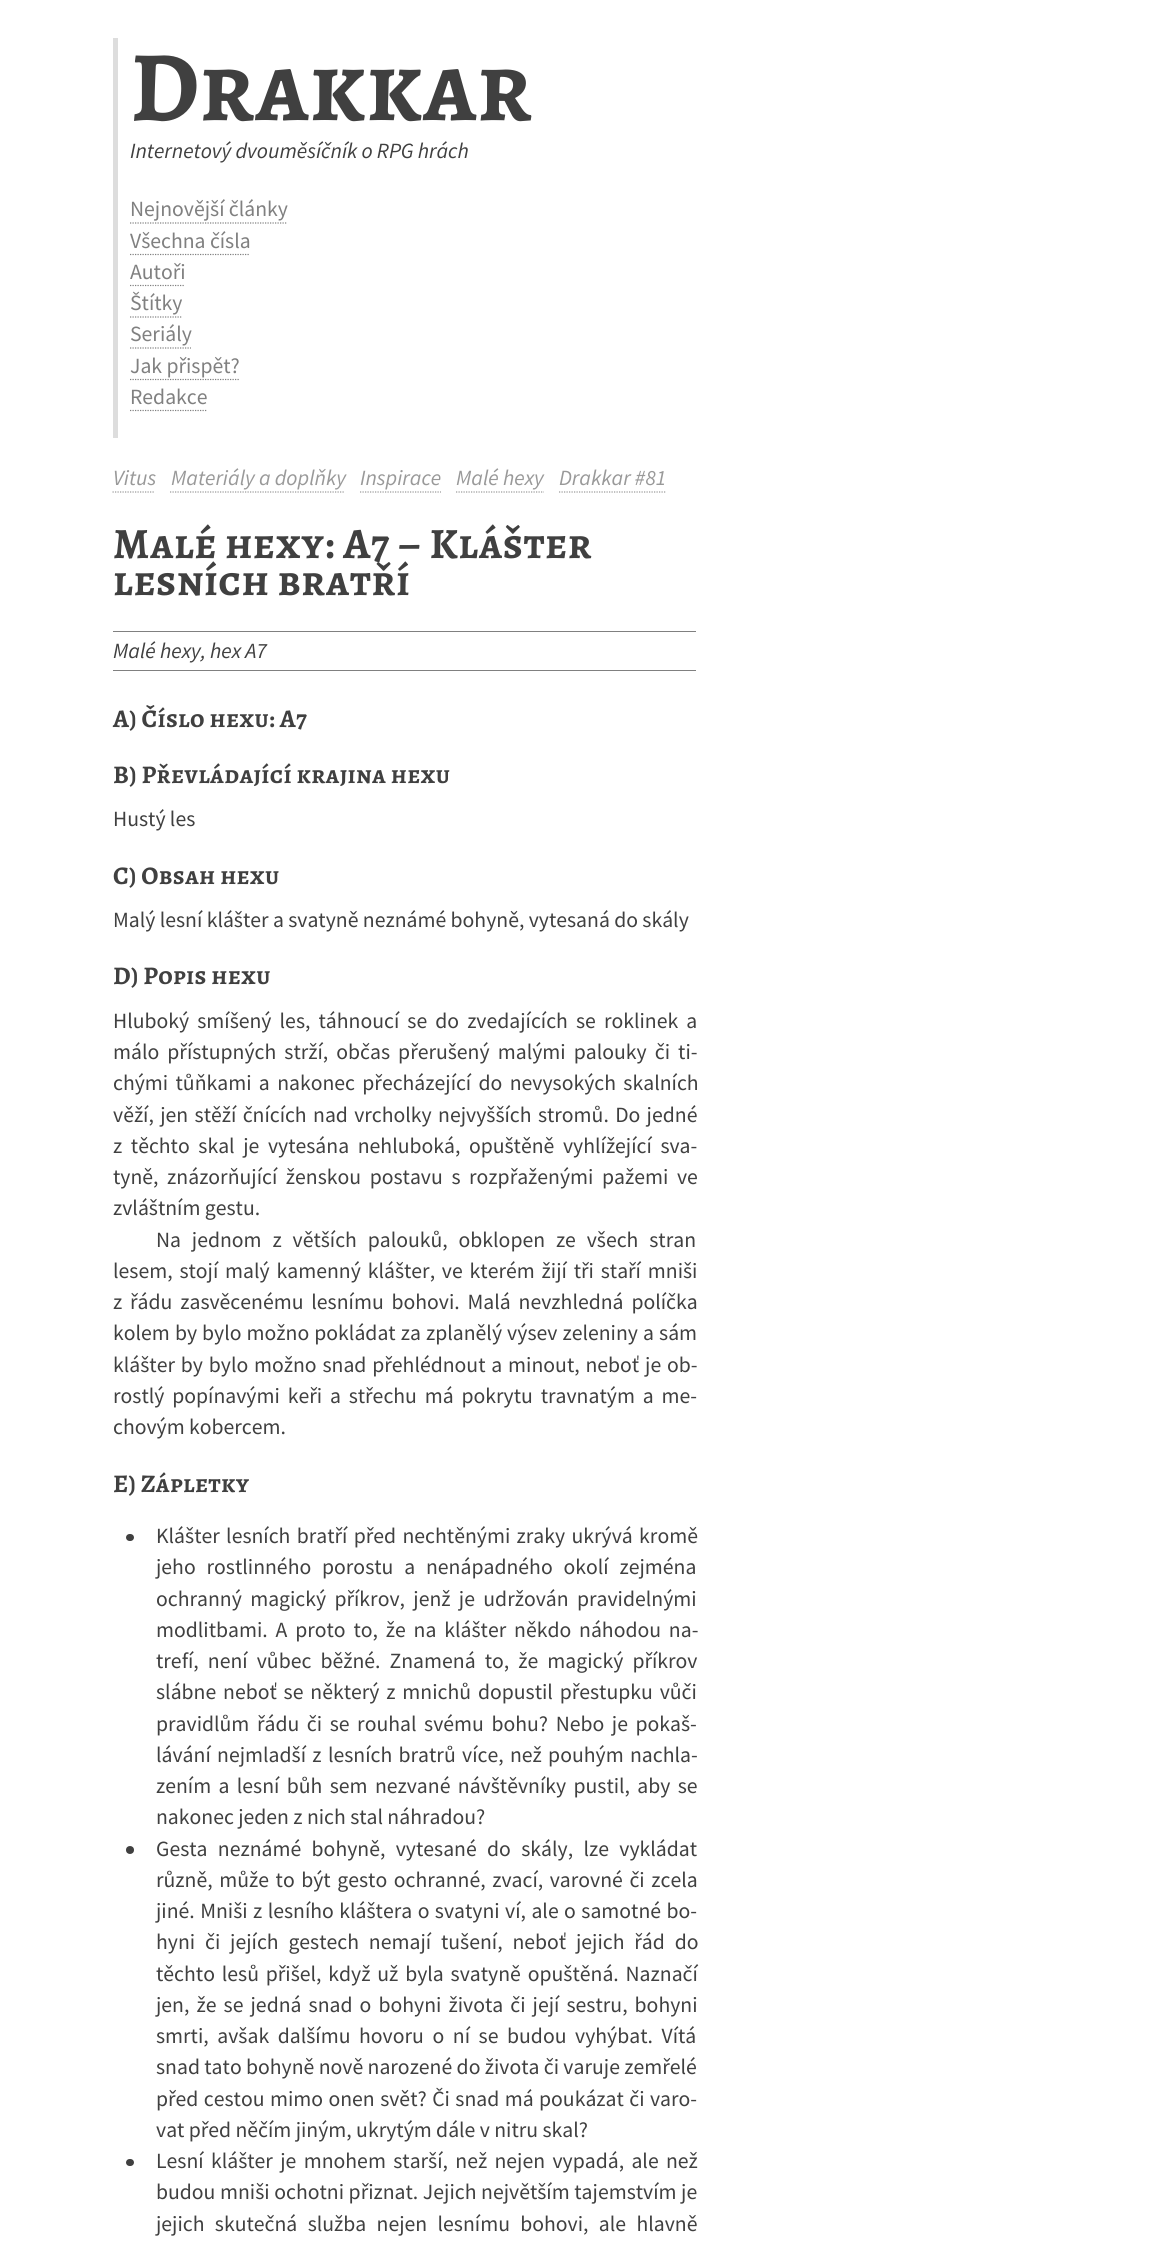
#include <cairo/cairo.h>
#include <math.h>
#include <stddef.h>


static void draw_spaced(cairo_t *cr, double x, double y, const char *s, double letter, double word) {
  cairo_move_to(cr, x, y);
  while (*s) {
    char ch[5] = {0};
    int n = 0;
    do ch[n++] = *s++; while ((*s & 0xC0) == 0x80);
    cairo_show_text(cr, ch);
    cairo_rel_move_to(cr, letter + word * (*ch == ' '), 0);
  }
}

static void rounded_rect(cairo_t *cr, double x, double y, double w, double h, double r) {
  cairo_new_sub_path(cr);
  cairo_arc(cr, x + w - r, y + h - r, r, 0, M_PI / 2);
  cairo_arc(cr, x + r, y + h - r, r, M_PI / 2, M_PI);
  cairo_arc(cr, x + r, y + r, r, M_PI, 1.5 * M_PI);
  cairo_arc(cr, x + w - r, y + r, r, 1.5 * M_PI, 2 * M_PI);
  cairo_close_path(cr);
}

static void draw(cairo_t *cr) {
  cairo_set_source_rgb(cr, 1, 1, 1);
  cairo_paint(cr);
  cairo_set_source_rgb(cr, 221 / 255.0, 221 / 255.0, 221 / 255.0);
  cairo_rectangle(cr, 113, 38, 5, 400);
  cairo_fill(cr);
  cairo_new_path(cr);
  cairo_move_to(cr, 130, 223);
  cairo_line_to(cr, 287.5, 223);
  cairo_set_source_rgb(cr, 128 / 255.0, 128 / 255.0, 128 / 255.0);
  cairo_set_line_width(cr, 1.2);
  cairo_set_dash(cr, (double[]){1.25, 1.25}, 2, 0);
  cairo_stroke(cr);
  cairo_new_path(cr);
  cairo_move_to(cr, 130, 254.5);
  cairo_line_to(cr, 250, 254.5);
  cairo_stroke(cr);
  cairo_new_path(cr);
  cairo_move_to(cr, 130, 285.5);
  cairo_line_to(cr, 185, 285.5);
  cairo_stroke(cr);
  cairo_new_path(cr);
  cairo_move_to(cr, 130, 317);
  cairo_line_to(cr, 182.5, 317);
  cairo_stroke(cr);
  cairo_new_path(cr);
  cairo_move_to(cr, 130, 348);
  cairo_line_to(cr, 191, 348);
  cairo_stroke(cr);
  cairo_new_path(cr);
  cairo_move_to(cr, 130, 379.5);
  cairo_line_to(cr, 240, 379.5);
  cairo_stroke(cr);
  cairo_new_path(cr);
  cairo_move_to(cr, 130, 410.5);
  cairo_line_to(cr, 207.5, 410.5);
  cairo_stroke(cr);
  cairo_new_path(cr);
  cairo_move_to(cr, 112.5, 492);
  cairo_line_to(cr, 155, 492);
  cairo_set_source_rgb(cr, 153 / 255.0, 153 / 255.0, 153 / 255.0);
  cairo_stroke(cr);
  cairo_new_path(cr);
  cairo_move_to(cr, 170, 492);
  cairo_line_to(cr, 345, 492);
  cairo_stroke(cr);
  cairo_new_path(cr);
  cairo_move_to(cr, 360, 492);
  cairo_line_to(cr, 441, 492);
  cairo_stroke(cr);
  cairo_new_path(cr);
  cairo_move_to(cr, 456, 492);
  cairo_line_to(cr, 544, 492);
  cairo_stroke(cr);
  cairo_new_path(cr);
  cairo_move_to(cr, 559, 492);
  cairo_line_to(cr, 666, 492);
  cairo_stroke(cr);
  cairo_set_source_rgb(cr, 128 / 255.0, 128 / 255.0, 128 / 255.0);
  cairo_rectangle(cr, 113, 631, 583, 1);
  cairo_fill(cr);
  cairo_rectangle(cr, 113, 670, 583, 1);
  cairo_fill(cr);
  cairo_set_source_rgb(cr, 64 / 255.0, 64 / 255.0, 64 / 255.0);
  rounded_rect(cr, 126, 1534, 8, 7, 3.5);
  cairo_fill(cr);
  cairo_arc(cr, 130, 1850, 4, 0, 2 * M_PI);
  cairo_fill(cr);
  rounded_rect(cr, 126, 2159, 8, 7, 3.5);
  cairo_fill(cr);
  cairo_select_font_face(cr, "Alegreya SC", CAIRO_FONT_SLANT_NORMAL, CAIRO_FONT_WEIGHT_BOLD);
  cairo_set_font_size(cr, 100);
  cairo_move_to(cr, 130, 120);
  cairo_show_text(cr, "Drakkar");
  cairo_select_font_face(cr, "Source Sans Pro", CAIRO_FONT_SLANT_ITALIC, CAIRO_FONT_WEIGHT_NORMAL);
  cairo_set_font_size(cr, 21.7);
  cairo_move_to(cr, 130, 158);
  cairo_show_text(cr, "Internetový dvouměsíčník o RPG hrách");
  cairo_select_font_face(cr, "Source Sans Pro", CAIRO_FONT_SLANT_NORMAL, CAIRO_FONT_WEIGHT_NORMAL);
  cairo_set_source_rgb(cr, 128 / 255.0, 128 / 255.0, 128 / 255.0);
  cairo_move_to(cr, 130, 216);
  cairo_show_text(cr, "Nejnovější články");
  cairo_move_to(cr, 130, 248);
  cairo_show_text(cr, "Všechna čísla");
  cairo_move_to(cr, 130, 279);
  cairo_show_text(cr, "Autoři");
  cairo_move_to(cr, 130, 310);
  cairo_show_text(cr, "Štítky");
  cairo_move_to(cr, 130, 341);
  cairo_show_text(cr, "Seriály");
  cairo_move_to(cr, 130, 373);
  cairo_show_text(cr, "Jak přispět?");
  cairo_move_to(cr, 130, 404);
  cairo_show_text(cr, "Redakce");
  cairo_select_font_face(cr, "Source Sans Pro", CAIRO_FONT_SLANT_ITALIC, CAIRO_FONT_WEIGHT_NORMAL);
  cairo_set_source_rgb(cr, 153 / 255.0, 153 / 255.0, 153 / 255.0);
  cairo_move_to(cr, 113, 485);
  cairo_show_text(cr, "Vitus");
  cairo_move_to(cr, 171, 485);
  cairo_show_text(cr, "Materiály a doplňky");
  cairo_move_to(cr, 360, 485);
  cairo_show_text(cr, "Inspirace");
  cairo_move_to(cr, 456, 485);
  cairo_show_text(cr, "Malé hexy");
  cairo_move_to(cr, 559, 485);
  cairo_show_text(cr, "Drakkar #81");
  cairo_select_font_face(cr, "Alegreya SC", CAIRO_FONT_SLANT_NORMAL, CAIRO_FONT_WEIGHT_BOLD);
  cairo_set_font_size(cr, 43.25);
  cairo_set_source_rgb(cr, 64 / 255.0, 64 / 255.0, 64 / 255.0);
  draw_spaced(cr, 113, 558, "Malé hexy: A7 – Klášter", 0.5, 0);
  draw_spaced(cr, 113, 595, "lesních bratří", 0.5, 0);
  cairo_select_font_face(cr, "Source Sans Pro", CAIRO_FONT_SLANT_ITALIC, CAIRO_FONT_WEIGHT_NORMAL);
  cairo_set_font_size(cr, 21.7);
  cairo_move_to(cr, 113, 658);
  cairo_show_text(cr, "Malé hexy, hex A7");
  cairo_select_font_face(cr, "Alegreya SC", CAIRO_FONT_SLANT_NORMAL, CAIRO_FONT_WEIGHT_BOLD);
  cairo_set_font_size(cr, 25.4);
  draw_spaced(cr, 113, 727, "A) Číslo hexu: A7", 0.3, 0);
  draw_spaced(cr, 113, 783, "B) Převládající krajina hexu", 0.3, 0);
  cairo_select_font_face(cr, "Source Sans Pro", CAIRO_FONT_SLANT_NORMAL, CAIRO_FONT_WEIGHT_NORMAL);
  cairo_set_font_size(cr, 21.7);
  cairo_move_to(cr, 113, 826);
  cairo_show_text(cr, "Hustý les");
  cairo_select_font_face(cr, "Alegreya SC", CAIRO_FONT_SLANT_NORMAL, CAIRO_FONT_WEIGHT_BOLD);
  cairo_set_font_size(cr, 25.4);
  draw_spaced(cr, 113, 884, "C) Obsah hexu", 0.3, 0);
  cairo_select_font_face(cr, "Source Sans Pro", CAIRO_FONT_SLANT_NORMAL, CAIRO_FONT_WEIGHT_NORMAL);
  cairo_set_font_size(cr, 21.7);
  cairo_move_to(cr, 113, 927);
  cairo_show_text(cr, "Malý lesní klášter a svatyně neznámé bohyně, vytesaná do skály");
  cairo_select_font_face(cr, "Alegreya SC", CAIRO_FONT_SLANT_NORMAL, CAIRO_FONT_WEIGHT_BOLD);
  cairo_set_font_size(cr, 25.4);
  draw_spaced(cr, 113, 984, "D) Popis hexu", 0.3, 0);
  cairo_select_font_face(cr, "Source Sans Pro", CAIRO_FONT_SLANT_NORMAL, CAIRO_FONT_WEIGHT_NORMAL);
  cairo_set_font_size(cr, 21.7);
  draw_spaced(cr, 113, 1028, "Hluboký smíšený les, táhnoucí se do zvedajících se roklinek a", 0, 3.75);
  draw_spaced(cr, 113, 1059, "málo přístupných strží, občas přerušený malými palouky či ti-", 0, 3.75);
  draw_spaced(cr, 113, 1090, "chými tůňkami a nakonec přecházející do nevysokých skalních", 0, 3);
  draw_spaced(cr, 113, 1122, "věží, jen stěží čnících nad vrcholky nejvyšších stromů. Do jedné", 0, 2);
  draw_spaced(cr, 113, 1153, "z těchto skal je vytesána nehluboká, opuštěně vyhlížející sva-", 0, 4.25);
  draw_spaced(cr, 113, 1184, "tyně, znázorňující ženskou postavu s rozpřaženými pažemi ve", 0, 4.25);
  cairo_move_to(cr, 113, 1215);
  cairo_show_text(cr, "zvláštním gestu.");
  draw_spaced(cr, 156, 1247, "Na jednom z větších palouků, obklopen ze všech stran", 0, 6.5);
  draw_spaced(cr, 113, 1278, "lesem, stojí malý kamenný klášter, ve kterém žijí tři staří mniši", 0, 2.5);
  draw_spaced(cr, 113, 1309, "z řádu zasvěcenému lesnímu bohovi. Malá nevzhledná políčka", 0, 3.5);
  draw_spaced(cr, 113, 1340, "kolem by bylo možno pokládat za zplanělý výsev zeleniny a sám", 0, 0.75);
  draw_spaced(cr, 113, 1372, "klášter by bylo možno snad přehlédnout a minout, neboť je ob-", 0, 1.5);
  draw_spaced(cr, 113, 1403, "rostlý popínavými keři a střechu má pokrytu travnatým a me-", 0, 3.5);
  cairo_move_to(cr, 113, 1434);
  cairo_show_text(cr, "chovým kobercem.");
  cairo_select_font_face(cr, "Alegreya SC", CAIRO_FONT_SLANT_NORMAL, CAIRO_FONT_WEIGHT_BOLD);
  cairo_set_font_size(cr, 25.4);
  draw_spaced(cr, 113, 1492, "E) Zápletky", 0.3, 0);
  cairo_select_font_face(cr, "Source Sans Pro", CAIRO_FONT_SLANT_NORMAL, CAIRO_FONT_WEIGHT_NORMAL);
  cairo_set_font_size(cr, 21.7);
  draw_spaced(cr, 156, 1543, "Klášter lesních bratří před nechtěnými zraky ukrývá kromě", 0, 2);
  draw_spaced(cr, 156, 1574, "jeho rostlinného porostu a nenápadného okolí zejména", 0, 6.5);
  draw_spaced(cr, 156, 1606, "ochranný magický příkrov, jenž je udržován pravidelnými", 0, 4);
  draw_spaced(cr, 156, 1637, "modlitbami. A proto to, že na klášter někdo náhodou na-", 0, 3.5);
  draw_spaced(cr, 156, 1668, "trefí, není vůbec běžné. Znamená to, že magický příkrov", 0, 4.75);
  draw_spaced(cr, 156, 1699, "slábne neboť se některý z mnichů dopustil přestupku vůči", 0, 2.5);
  draw_spaced(cr, 156, 1731, "pravidlům řádu či se rouhal svému bohu? Nebo je pokaš-", 0, 3.25);
  draw_spaced(cr, 156, 1762, "lávání nejmladší z lesních bratrů více, než pouhým nachla-", 0, 2);
  draw_spaced(cr, 156, 1793, "zením a lesní bůh sem nezvané návštěvníky pustil, aby se", 0, 3);
  cairo_move_to(cr, 156, 1824);
  cairo_show_text(cr, "nakonec jeden z nich stal náhradou?");
  draw_spaced(cr, 156, 1856, "Gesta neznámé bohyně, vytesané do skály, lze vykládat", 0, 6);
  draw_spaced(cr, 156, 1887, "různě, může to být gesto ochranné, zvací, varovné či zcela", 0, 2.25);
  draw_spaced(cr, 156, 1918, "jiné. Mniši z lesního kláštera o svatyni ví, ale o samotné bo-", 0, 1.1);
  draw_spaced(cr, 156, 1949, "hyni či jejích gestech nemají tušení, neboť jejich řád do", 0, 5.5);
  draw_spaced(cr, 156, 1981, "těchto lesů přišel, když už byla svatyně opuštěná. Naznačí", 0, 2.5);
  draw_spaced(cr, 156, 2012, "jen, že se jedná snad o bohyni života či její sestru, bohyni", 0, 2.75);
  draw_spaced(cr, 156, 2043, "smrti, avšak dalšímu hovoru o ní se budou vyhýbat. Vítá", 0, 4.25);
  cairo_move_to(cr, 156, 2074);
  cairo_show_text(cr, "snad tato bohyně nově narozené do života či varuje zemřelé");
  draw_spaced(cr, 156, 2106, "před cestou mimo onen svět? Či snad má poukázat či varo-", 0, 1.1);
  cairo_move_to(cr, 156, 2137);
  cairo_show_text(cr, "vat před něčím jiným, ukrytým dále v nitru skal?");
  draw_spaced(cr, 156, 2168, "Lesní klášter je mnohem starší, než nejen vypadá, ale než", 0, 3);
  draw_spaced(cr, 156, 2199, "budou mniši ochotni přiznat. Jejich největším tajemstvím je", 0, 0.25);
  draw_spaced(cr, 156, 2231, "jejich skutečná služba nejen lesnímu bohovi, ale hlavně", 0, 6);
}

int main(void) {
  cairo_surface_t *surface = cairo_image_surface_create(CAIRO_FORMAT_RGB24, 1171, 2252);
  cairo_t *cr = cairo_create(surface);
  cairo_font_options_t *options = cairo_font_options_create();
  cairo_font_options_set_hint_metrics(options, CAIRO_HINT_METRICS_OFF);
  cairo_font_options_set_hint_style(options, CAIRO_HINT_STYLE_NONE);
  cairo_set_font_options(cr, options);
  cairo_set_miter_limit(cr, 4);
  draw(cr);
  cairo_surface_write_to_png(surface, "out.png");
  cairo_font_options_destroy(options);
  cairo_destroy(cr);
  cairo_surface_destroy(surface);
  return 0;
}
